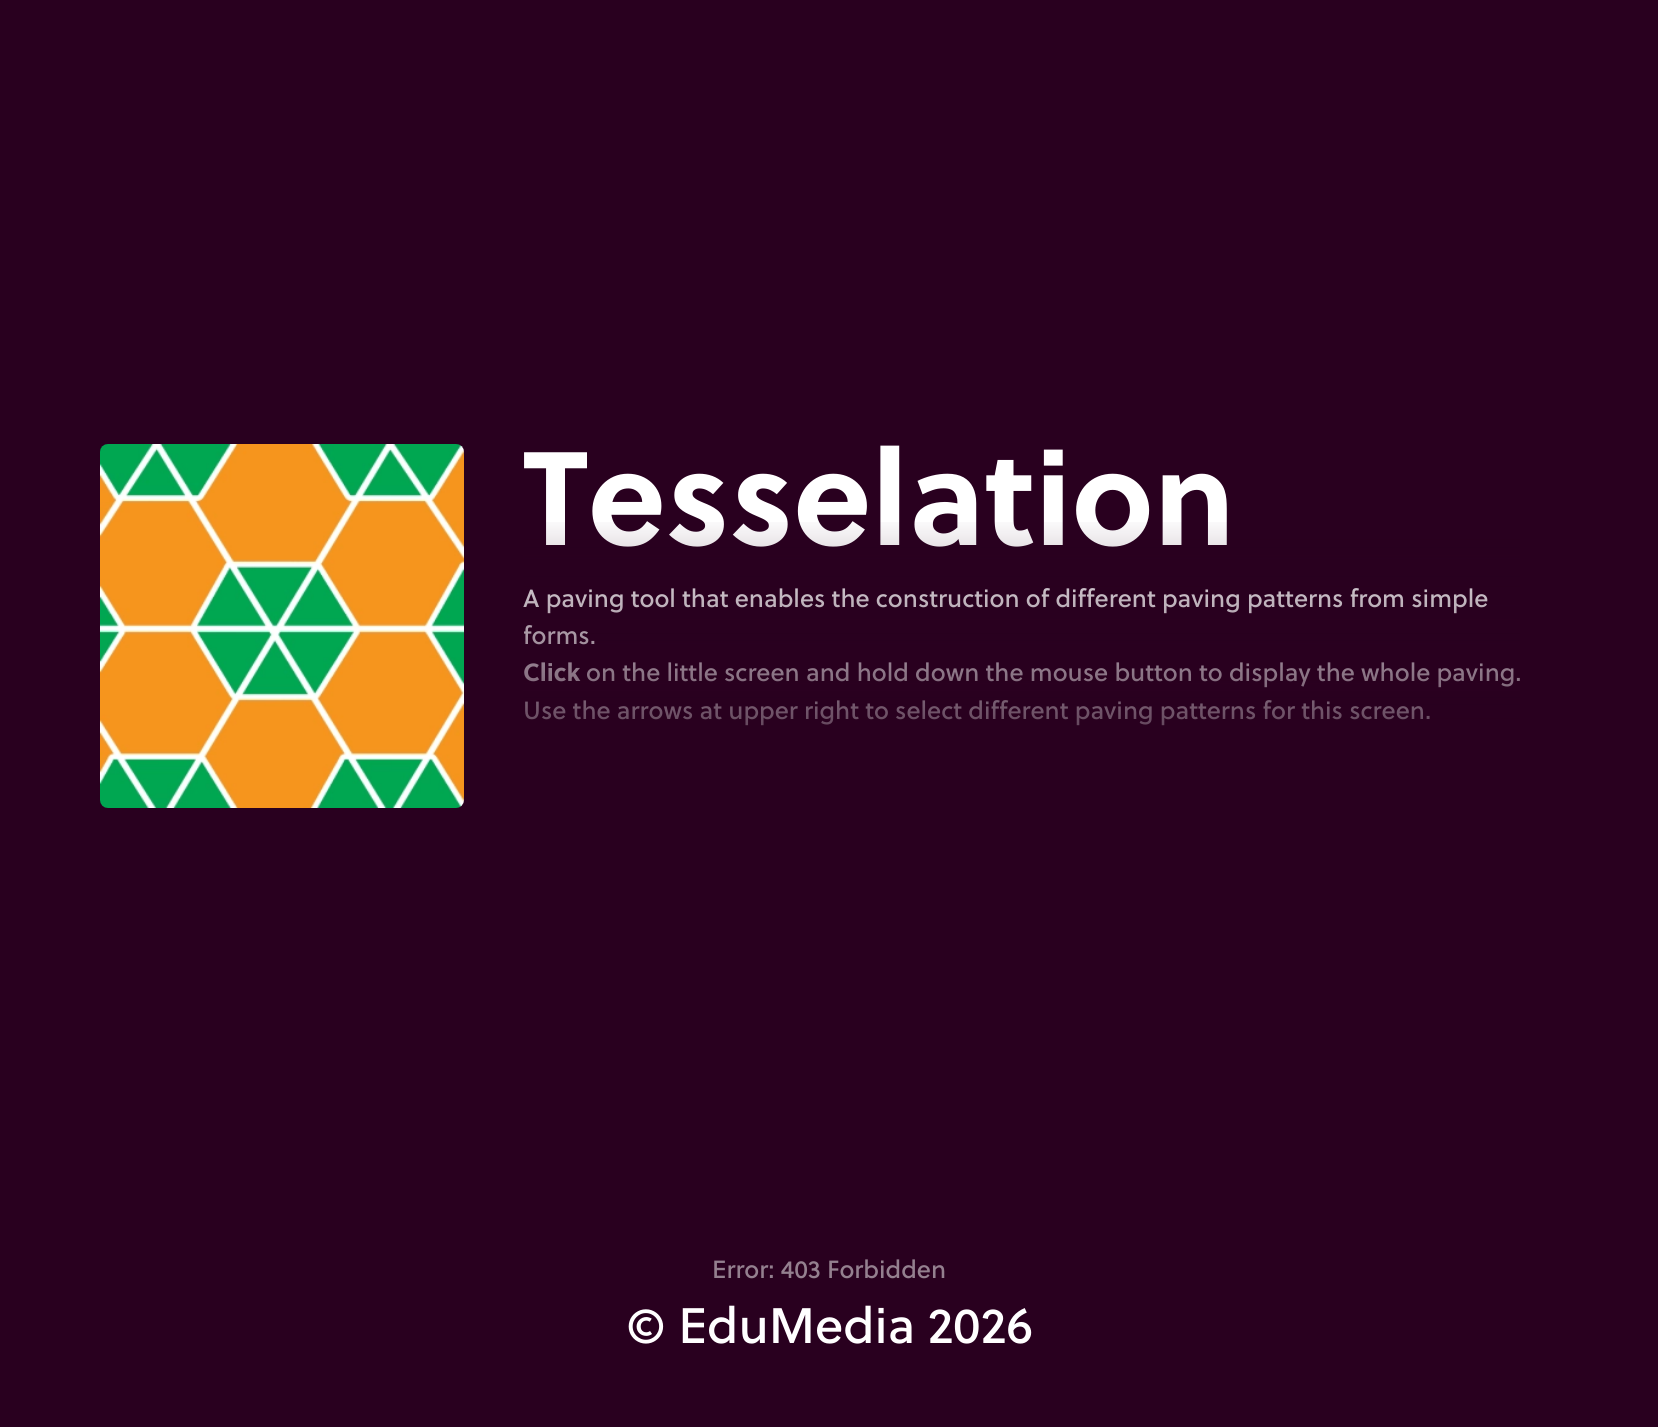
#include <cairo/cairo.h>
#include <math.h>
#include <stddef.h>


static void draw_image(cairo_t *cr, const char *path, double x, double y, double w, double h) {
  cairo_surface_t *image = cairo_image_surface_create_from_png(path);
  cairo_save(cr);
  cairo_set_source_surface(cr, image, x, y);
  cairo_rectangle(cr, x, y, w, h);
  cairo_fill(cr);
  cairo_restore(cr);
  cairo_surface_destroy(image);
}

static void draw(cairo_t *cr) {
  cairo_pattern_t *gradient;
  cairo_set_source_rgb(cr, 41 / 255.0, 0, 31 / 255.0);
  cairo_paint(cr);
  draw_image(cr, "images/1.png", 100, 444, 364, 364);
  cairo_select_font_face(cr, "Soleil", CAIRO_FONT_SLANT_NORMAL, CAIRO_FONT_WEIGHT_BOLD);
  cairo_set_font_size(cr, 132.5);
  cairo_set_source_rgb(cr, 1, 1, 1);
  cairo_move_to(cr, 523, 545);
  cairo_show_text(cr, "Tesselation");
  cairo_select_font_face(cr, "Soleil", CAIRO_FONT_SLANT_NORMAL, CAIRO_FONT_WEIGHT_NORMAL);
  cairo_set_font_size(cr, 24.85);
  cairo_move_to(cr, 523, 607);
  cairo_show_text(cr, "A paving tool that enables the construction of different paving patterns from simple");
  cairo_move_to(cr, 523, 644);
  cairo_show_text(cr, "forms.");
  cairo_select_font_face(cr, "Soleil", CAIRO_FONT_SLANT_NORMAL, CAIRO_FONT_WEIGHT_BOLD);
  cairo_move_to(cr, 523, 681);
  cairo_show_text(cr, "Click");
  cairo_select_font_face(cr, "Soleil", CAIRO_FONT_SLANT_NORMAL, CAIRO_FONT_WEIGHT_NORMAL);
  cairo_move_to(cr, 586, 681);
  cairo_show_text(cr, "on the little screen and hold down the mouse button to display the whole paving.");
  cairo_move_to(cr, 523, 719);
  cairo_show_text(cr, "Use the arrows at upper right to select different paving patterns for this screen.");
  gradient = cairo_pattern_create_linear(1040, 808, 1040, 516);
  cairo_pattern_add_color_stop_rgba(gradient, 0, 41 / 255.0, 0, 31 / 255.0, 1);
  cairo_pattern_add_color_stop_rgba(gradient, 1, 41 / 255.0, 0, 31 / 255.0, 0);
  cairo_set_source(cr, gradient);
  cairo_pattern_destroy(gradient);
  cairo_rectangle(cr, 523, 522, 997, 204);
  cairo_fill(cr);
  cairo_set_source_rgb(cr, 148 / 255.0, 128 / 255.0, 143 / 255.0);
  cairo_move_to(cr, 712, 1278);
  cairo_show_text(cr, "Error: 403 Forbidden");
  cairo_set_font_size(cr, 49.75);
  cairo_set_source_rgb(cr, 1, 1, 1);
  cairo_move_to(cr, 626, 1343);
  cairo_show_text(cr, "© EduMedia 2026");
}

int main(void) {
  cairo_surface_t *surface = cairo_image_surface_create(CAIRO_FORMAT_RGB24, 1658, 1427);
  cairo_t *cr = cairo_create(surface);
  cairo_font_options_t *options = cairo_font_options_create();
  cairo_font_options_set_hint_metrics(options, CAIRO_HINT_METRICS_OFF);
  cairo_font_options_set_hint_style(options, CAIRO_HINT_STYLE_NONE);
  cairo_set_font_options(cr, options);
  cairo_set_miter_limit(cr, 4);
  draw(cr);
  cairo_surface_write_to_png(surface, "out.png");
  cairo_font_options_destroy(options);
  cairo_destroy(cr);
  cairo_surface_destroy(surface);
  return 0;
}
